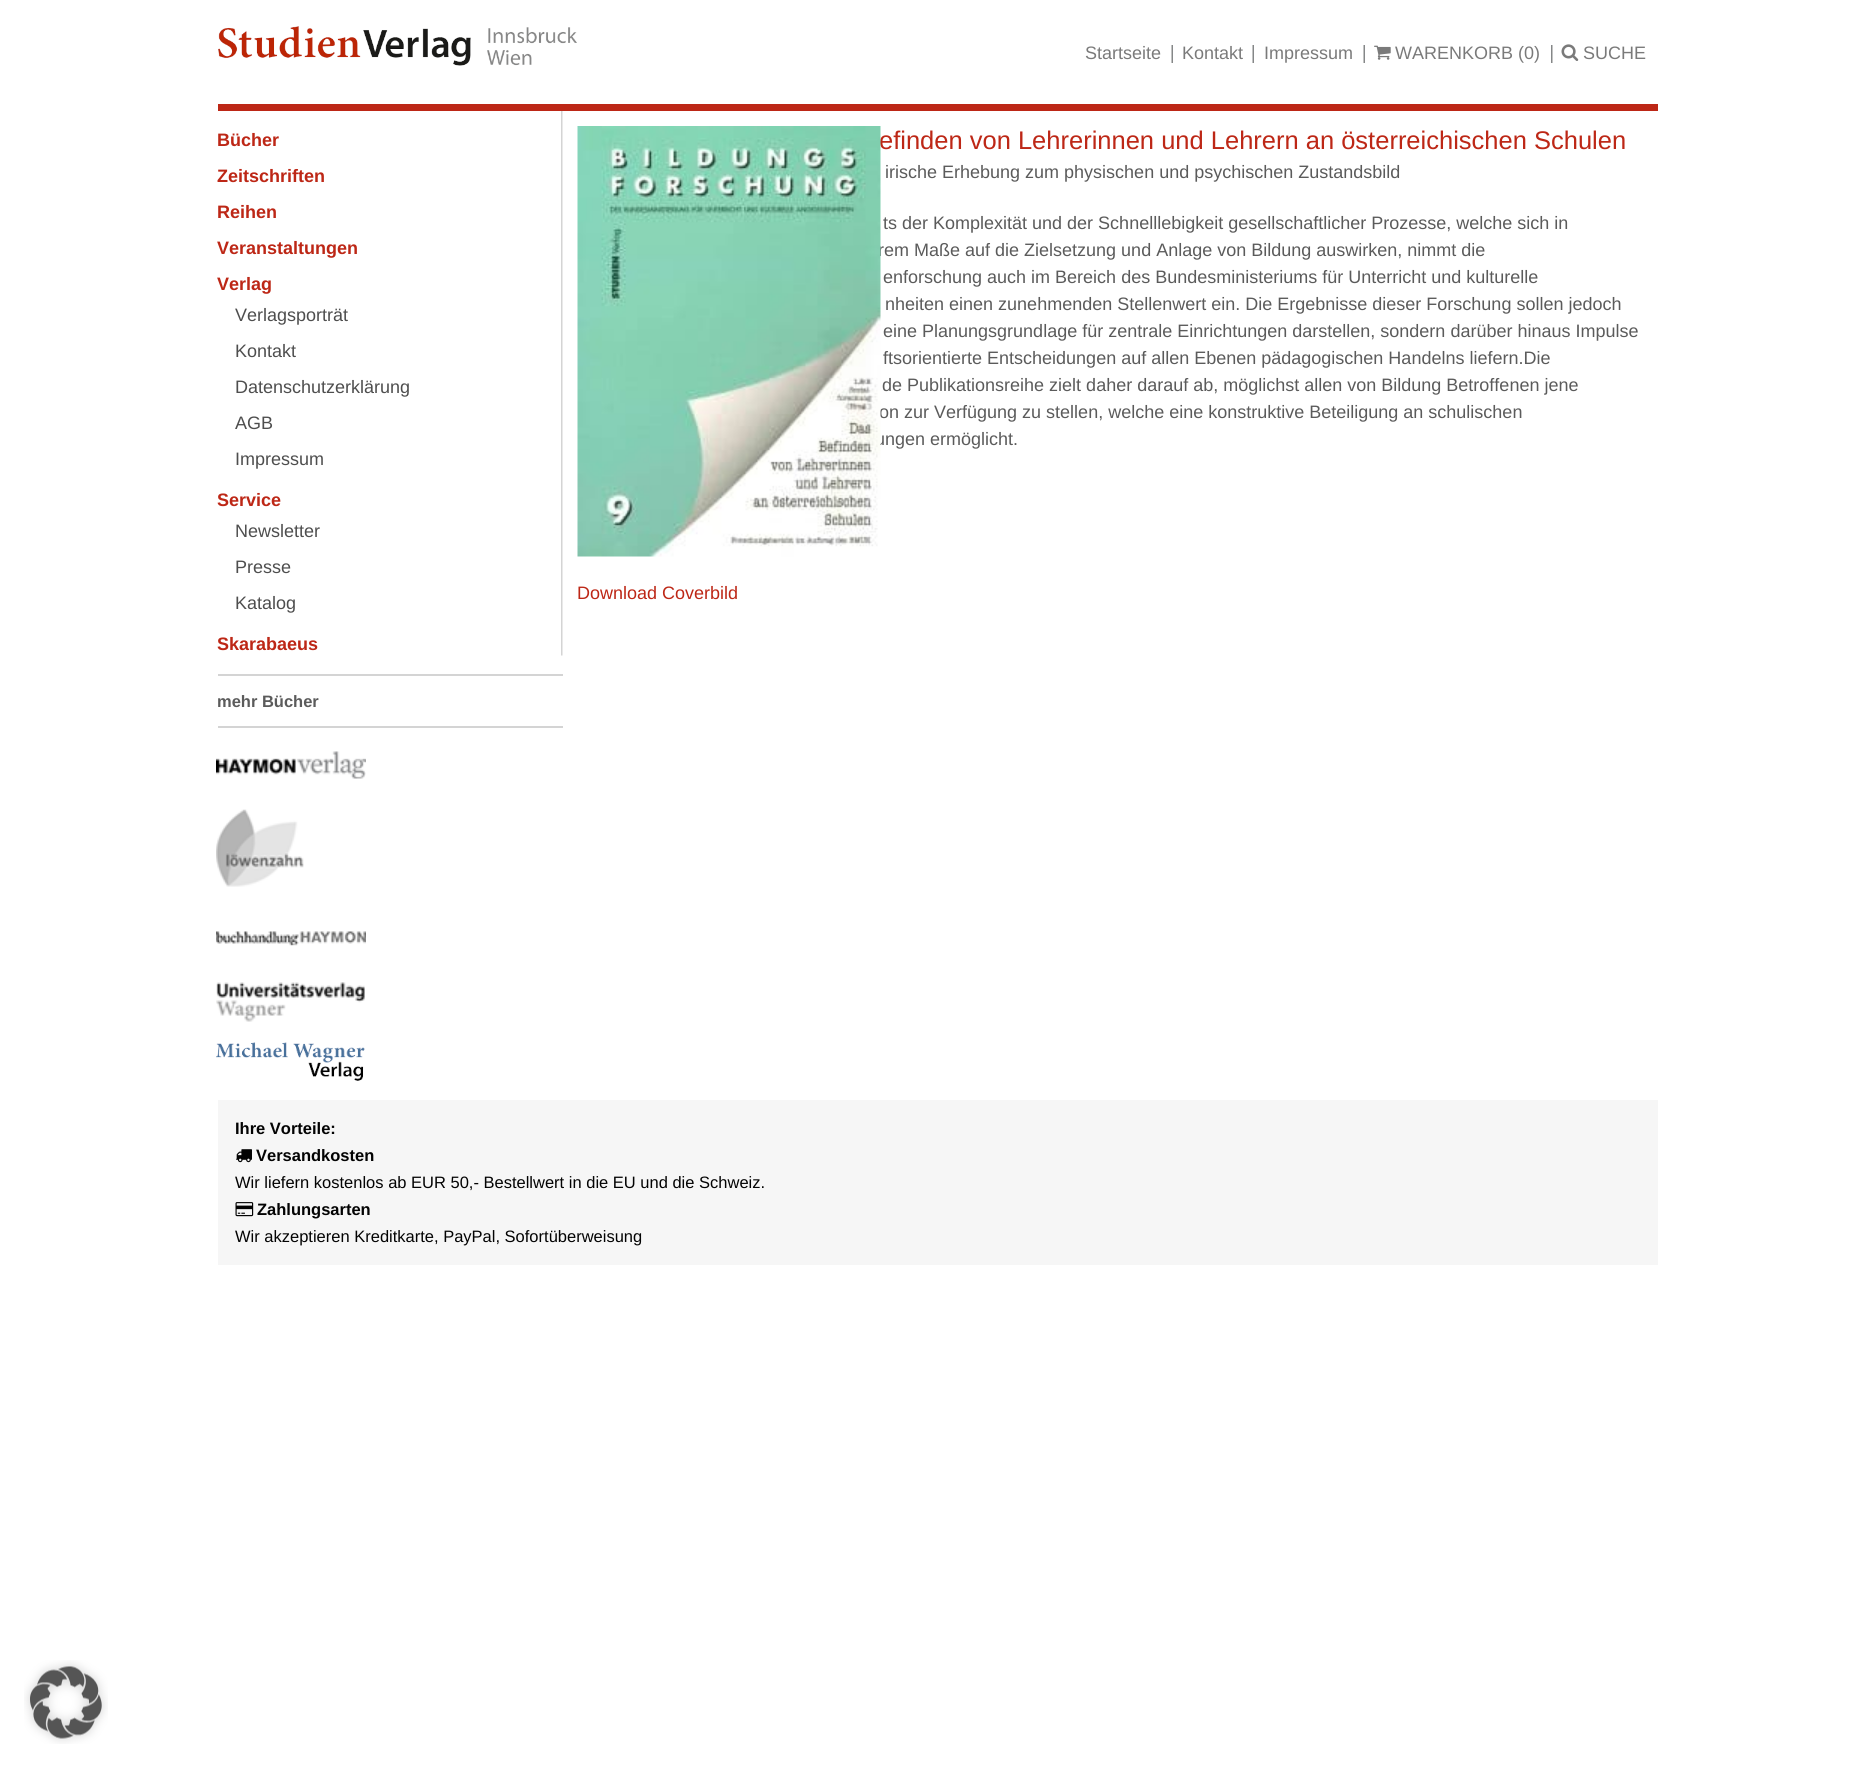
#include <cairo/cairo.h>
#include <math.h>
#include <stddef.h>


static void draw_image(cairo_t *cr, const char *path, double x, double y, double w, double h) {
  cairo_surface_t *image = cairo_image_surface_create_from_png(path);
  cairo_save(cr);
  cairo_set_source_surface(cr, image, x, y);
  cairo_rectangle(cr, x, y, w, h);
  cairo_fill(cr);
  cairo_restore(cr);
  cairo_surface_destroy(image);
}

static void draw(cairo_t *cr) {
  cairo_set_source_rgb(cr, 1, 1, 1);
  cairo_paint(cr);
  cairo_set_source_rgb(cr, 189 / 255.0, 39 / 255.0, 22 / 255.0);
  cairo_rectangle(cr, 218, 104, 1440, 7);
  cairo_fill(cr);
  draw_image(cr, "images/1.png", 218, 26, 359, 40);
  draw_image(cr, "images/2.png", 1171, 45, 2, 18);
  draw_image(cr, "images/2.png", 1252, 45, 2, 18);
  draw_image(cr, "images/2.png", 1363, 45, 2, 18);
  draw_image(cr, "images/3.png", 1374, 45, 17, 15);
  draw_image(cr, "images/4.png", 1551, 45, 2, 18);
  draw_image(cr, "images/5.png", 1561, 44, 18, 17);
  draw_image(cr, "images/6.png", 561, 111, 2, 545);
  cairo_set_source_rgb(cr, 212 / 255.0, 212 / 255.0, 212 / 255.0);
  cairo_rectangle(cr, 218, 674, 345, 2);
  cairo_fill(cr);
  cairo_rectangle(cr, 218, 726, 345, 2);
  cairo_fill(cr);
  draw_image(cr, "images/7.png", 216, 751, 150, 28);
  draw_image(cr, "images/8.png", 216, 809, 88, 78);
  draw_image(cr, "images/9.png", 216, 931, 150, 15);
  draw_image(cr, "images/10.png", 216, 982, 149, 40);
  draw_image(cr, "images/11.png", 216, 1042, 149, 39);
  cairo_set_source_rgb(cr, 246 / 255.0, 246 / 255.0, 246 / 255.0);
  cairo_rectangle(cr, 218, 1100, 1440, 165);
  cairo_fill(cr);
  draw_image(cr, "images/13.png", 236, 1149, 16, 14);
  draw_image(cr, "images/14.png", 235, 1202, 19, 15);
  draw_image(cr, "images/15.png", 24, 1660, 84, 84);
  cairo_select_font_face(cr, "Liberation Sans", CAIRO_FONT_SLANT_NORMAL, CAIRO_FONT_WEIGHT_NORMAL);
  cairo_set_font_size(cr, 18);
  cairo_set_source_rgb(cr, 122 / 255.0, 122 / 255.0, 122 / 255.0);
  cairo_move_to(cr, 1085, 59);
  cairo_show_text(cr, "Startseite");
  cairo_move_to(cr, 1182, 59);
  cairo_show_text(cr, "Kontakt");
  cairo_move_to(cr, 1264, 59);
  cairo_show_text(cr, "Impressum");
  cairo_move_to(cr, 1395, 59);
  cairo_show_text(cr, "WARENKORB (0)");
  cairo_move_to(cr, 1583, 59);
  cairo_show_text(cr, "SUCHE");
  cairo_select_font_face(cr, "Liberation Sans", CAIRO_FONT_SLANT_NORMAL, CAIRO_FONT_WEIGHT_BOLD);
  cairo_set_source_rgb(cr, 189 / 255.0, 39 / 255.0, 22 / 255.0);
  cairo_move_to(cr, 217, 146);
  cairo_show_text(cr, "Bücher");
  cairo_move_to(cr, 217, 182);
  cairo_show_text(cr, "Zeitschriften");
  cairo_move_to(cr, 217, 218);
  cairo_show_text(cr, "Reihen");
  cairo_move_to(cr, 217, 254);
  cairo_show_text(cr, "Veranstaltungen");
  cairo_move_to(cr, 217, 290);
  cairo_show_text(cr, "Verlag");
  cairo_select_font_face(cr, "Liberation Sans", CAIRO_FONT_SLANT_NORMAL, CAIRO_FONT_WEIGHT_NORMAL);
  cairo_set_source_rgb(cr, 78 / 255.0, 78 / 255.0, 78 / 255.0);
  cairo_move_to(cr, 235, 321);
  cairo_show_text(cr, "Verlagsporträt");
  cairo_move_to(cr, 235, 357);
  cairo_show_text(cr, "Kontakt");
  cairo_move_to(cr, 235, 393);
  cairo_show_text(cr, "Datenschutzerklärung");
  cairo_move_to(cr, 235, 429);
  cairo_show_text(cr, "AGB");
  cairo_move_to(cr, 235, 465);
  cairo_show_text(cr, "Impressum");
  cairo_select_font_face(cr, "Liberation Sans", CAIRO_FONT_SLANT_NORMAL, CAIRO_FONT_WEIGHT_BOLD);
  cairo_set_source_rgb(cr, 189 / 255.0, 39 / 255.0, 22 / 255.0);
  cairo_move_to(cr, 217, 506);
  cairo_show_text(cr, "Service");
  cairo_select_font_face(cr, "Liberation Sans", CAIRO_FONT_SLANT_NORMAL, CAIRO_FONT_WEIGHT_NORMAL);
  cairo_set_source_rgb(cr, 78 / 255.0, 78 / 255.0, 78 / 255.0);
  cairo_move_to(cr, 235, 537);
  cairo_show_text(cr, "Newsletter");
  cairo_move_to(cr, 235, 573);
  cairo_show_text(cr, "Presse");
  cairo_move_to(cr, 235, 609);
  cairo_show_text(cr, "Katalog");
  cairo_select_font_face(cr, "Liberation Sans", CAIRO_FONT_SLANT_NORMAL, CAIRO_FONT_WEIGHT_BOLD);
  cairo_set_source_rgb(cr, 189 / 255.0, 39 / 255.0, 22 / 255.0);
  cairo_move_to(cr, 217, 650);
  cairo_show_text(cr, "Skarabaeus");
  cairo_set_font_size(cr, 16.5);
  cairo_set_source_rgb(cr, 91 / 255.0, 91 / 255.0, 91 / 255.0);
  cairo_move_to(cr, 217, 707);
  cairo_show_text(cr, "mehr Bücher");
  cairo_select_font_face(cr, "Liberation Sans", CAIRO_FONT_SLANT_NORMAL, CAIRO_FONT_WEIGHT_NORMAL);
  cairo_set_font_size(cr, 25.5);
  cairo_set_source_rgb(cr, 189 / 255.0, 39 / 255.0, 22 / 255.0);
  cairo_move_to(cr, 879, 149);
  cairo_show_text(cr, "efinden von Lehrerinnen und Lehrern an österreichischen Schulen");
  cairo_set_font_size(cr, 18);
  cairo_set_source_rgb(cr, 91 / 255.0, 91 / 255.0, 91 / 255.0);
  cairo_move_to(cr, 885, 178);
  cairo_show_text(cr, "irische Erhebung zum physischen und psychischen Zustandsbild");
  cairo_move_to(cr, 883, 229);
  cairo_show_text(cr, "ts der Komplexität und der Schnelllebigkeit gesellschaftlicher Prozesse, welche sich in");
  cairo_move_to(cr, 878, 256);
  cairo_show_text(cr, "rem Maße auf die Zielsetzung und Anlage von Bildung auswirken, nimmt die");
  cairo_move_to(cr, 883, 283);
  cairo_show_text(cr, "enforschung auch im Bereich des Bundesministeriums für Unterricht und kulturelle");
  cairo_move_to(cr, 885, 310);
  cairo_show_text(cr, "nheiten einen zunehmenden Stellenwert ein. Die Ergebnisse dieser Forschung sollen jedoch");
  cairo_move_to(cr, 883, 337);
  cairo_show_text(cr, "eine Planungsgrundlage für zentrale Einrichtungen darstellen, sondern darüber hinaus Impulse");
  cairo_move_to(cr, 883, 364);
  cairo_show_text(cr, "ftsorientierte Entscheidungen auf allen Ebenen pädagogischen Handelns liefern.Die");
  cairo_move_to(cr, 882, 391);
  cairo_show_text(cr, "de Publikationsreihe zielt daher darauf ab, möglichst allen von Bildung Betroffenen jene");
  cairo_move_to(cr, 879, 418);
  cairo_show_text(cr, "on zur Verfügung zu stellen, welche eine konstruktive Beteiligung an schulischen");
  cairo_move_to(cr, 875, 445);
  cairo_show_text(cr, "ungen ermöglicht.");
  draw_image(cr, "images/12.png", 577, 126, 304, 431);
  cairo_set_source_rgb(cr, 189 / 255.0, 39 / 255.0, 22 / 255.0);
  cairo_move_to(cr, 577, 599);
  cairo_show_text(cr, "Download Coverbild");
  cairo_select_font_face(cr, "Liberation Sans", CAIRO_FONT_SLANT_NORMAL, CAIRO_FONT_WEIGHT_BOLD);
  cairo_set_font_size(cr, 16.5);
  cairo_set_source_rgb(cr, 3 / 255.0, 3 / 255.0, 3 / 255.0);
  cairo_move_to(cr, 235, 1134);
  cairo_show_text(cr, "Ihre Vorteile:");
  cairo_move_to(cr, 256, 1161);
  cairo_show_text(cr, "Versandkosten");
  cairo_select_font_face(cr, "Liberation Sans", CAIRO_FONT_SLANT_NORMAL, CAIRO_FONT_WEIGHT_NORMAL);
  cairo_move_to(cr, 235, 1188);
  cairo_show_text(cr, "Wir liefern kostenlos ab EUR 50,- Bestellwert in die EU und die Schweiz.");
  cairo_select_font_face(cr, "Liberation Sans", CAIRO_FONT_SLANT_NORMAL, CAIRO_FONT_WEIGHT_BOLD);
  cairo_move_to(cr, 257, 1215);
  cairo_show_text(cr, "Zahlungsarten");
  cairo_select_font_face(cr, "Liberation Sans", CAIRO_FONT_SLANT_NORMAL, CAIRO_FONT_WEIGHT_NORMAL);
  cairo_move_to(cr, 235, 1242);
  cairo_show_text(cr, "Wir akzeptieren Kreditkarte, PayPal, Sofortüberweisung");
}

int main(void) {
  cairo_surface_t *surface = cairo_image_surface_create(CAIRO_FORMAT_RGB24, 1873, 1768);
  cairo_t *cr = cairo_create(surface);
  cairo_font_options_t *options = cairo_font_options_create();
  cairo_font_options_set_hint_metrics(options, CAIRO_HINT_METRICS_OFF);
  cairo_font_options_set_hint_style(options, CAIRO_HINT_STYLE_NONE);
  cairo_set_font_options(cr, options);
  cairo_set_miter_limit(cr, 4);
  draw(cr);
  cairo_surface_write_to_png(surface, "out.png");
  cairo_font_options_destroy(options);
  cairo_destroy(cr);
  cairo_surface_destroy(surface);
  return 0;
}
